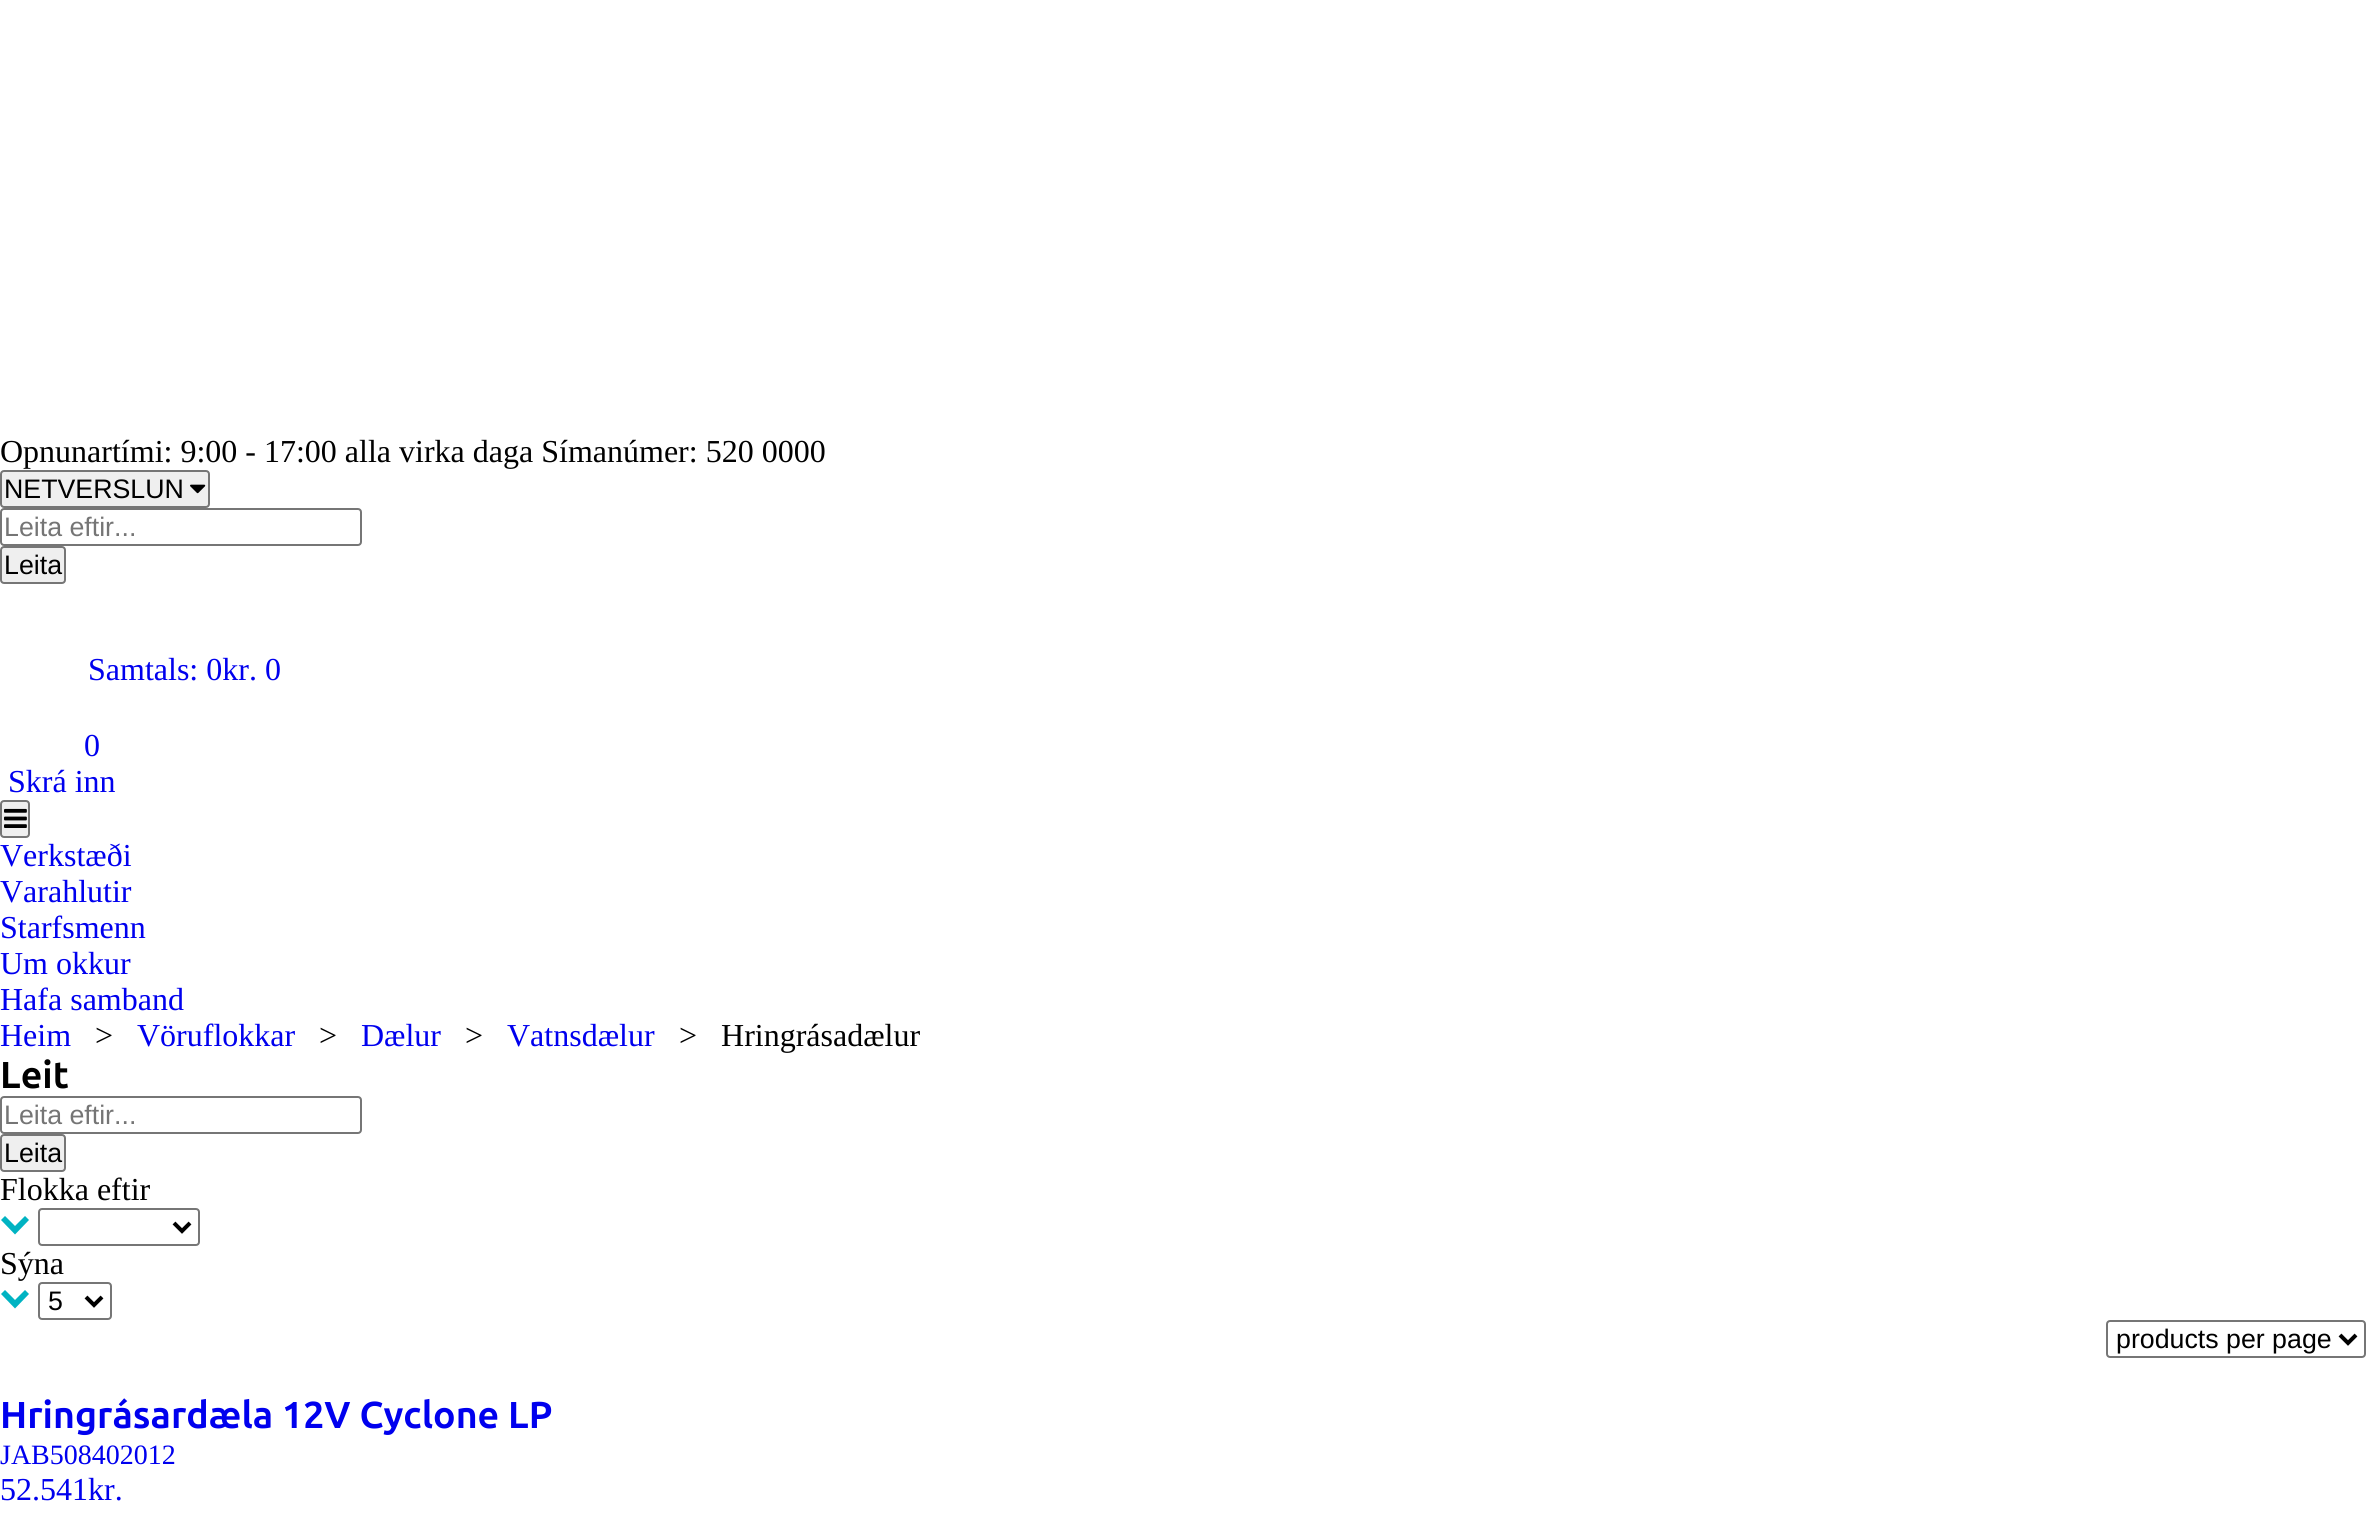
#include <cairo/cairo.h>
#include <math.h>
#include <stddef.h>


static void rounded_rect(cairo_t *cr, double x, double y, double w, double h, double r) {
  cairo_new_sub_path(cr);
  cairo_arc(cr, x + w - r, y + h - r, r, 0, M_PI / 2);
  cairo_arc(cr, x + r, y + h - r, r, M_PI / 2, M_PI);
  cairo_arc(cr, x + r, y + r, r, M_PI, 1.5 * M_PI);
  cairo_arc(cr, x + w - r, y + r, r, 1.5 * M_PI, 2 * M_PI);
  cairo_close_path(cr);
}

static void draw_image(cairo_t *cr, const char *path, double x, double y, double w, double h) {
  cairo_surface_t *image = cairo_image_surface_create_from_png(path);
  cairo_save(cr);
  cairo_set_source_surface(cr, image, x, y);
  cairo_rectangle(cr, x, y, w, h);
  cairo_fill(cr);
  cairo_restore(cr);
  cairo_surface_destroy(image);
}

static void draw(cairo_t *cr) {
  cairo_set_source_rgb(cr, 1, 1, 1);
  cairo_paint(cr);
  cairo_set_source_rgb(cr, 239 / 255.0, 239 / 255.0, 239 / 255.0);
  rounded_rect(cr, 1, 471, 208, 36, 3);
  cairo_fill_preserve(cr);
  cairo_set_source_rgb(cr, 118 / 255.0, 118 / 255.0, 118 / 255.0);
  cairo_stroke(cr);
  draw_image(cr, "images/1.png", 190, 484, 16, 10);
  rounded_rect(cr, 1, 509, 360, 36, 3);
  cairo_stroke(cr);
  cairo_set_source_rgb(cr, 239 / 255.0, 239 / 255.0, 239 / 255.0);
  rounded_rect(cr, 1, 547, 64, 36, 3);
  cairo_fill_preserve(cr);
  cairo_set_source_rgb(cr, 118 / 255.0, 118 / 255.0, 118 / 255.0);
  cairo_stroke(cr);
  cairo_set_source_rgb(cr, 239 / 255.0, 239 / 255.0, 239 / 255.0);
  rounded_rect(cr, 1, 801, 28, 36, 3);
  cairo_fill_preserve(cr);
  cairo_set_source_rgb(cr, 118 / 255.0, 118 / 255.0, 118 / 255.0);
  cairo_stroke(cr);
  draw_image(cr, "images/2.png", 4, 808, 23, 20);
  rounded_rect(cr, 1, 1097, 360, 36, 3);
  cairo_stroke(cr);
  cairo_set_source_rgb(cr, 239 / 255.0, 239 / 255.0, 239 / 255.0);
  rounded_rect(cr, 1, 1135, 64, 36, 3);
  cairo_fill_preserve(cr);
  cairo_set_source_rgb(cr, 118 / 255.0, 118 / 255.0, 118 / 255.0);
  cairo_stroke(cr);
  cairo_set_source_rgb(cr, 0, 179 / 255.0, 194 / 255.0);
  cairo_set_fill_rule(cr, CAIRO_FILL_RULE_EVEN_ODD);
  cairo_new_path(cr);
  cairo_move_to(cr, 29, 1220);
  cairo_line_to(cr, 15, 1234.5);
  cairo_line_to(cr, 1, 1220);
  cairo_line_to(cr, 5, 1216);
  cairo_line_to(cr, 15, 1226);
  cairo_line_to(cr, 25, 1216);
  cairo_close_path(cr);
  cairo_fill(cr);
  rounded_rect(cr, 39, 1209, 160, 36, 3);
  cairo_set_source_rgb(cr, 118 / 255.0, 118 / 255.0, 118 / 255.0);
  cairo_stroke(cr);
  cairo_new_path(cr);
  cairo_move_to(cr, 174, 1223);
  cairo_line_to(cr, 182, 1231);
  cairo_line_to(cr, 190, 1223);
  cairo_set_source_rgb(cr, 0, 0, 0);
  cairo_set_line_width(cr, 4);
  cairo_stroke(cr);
  cairo_set_source_rgb(cr, 0, 179 / 255.0, 194 / 255.0);
  cairo_new_path(cr);
  cairo_move_to(cr, 29, 1294);
  cairo_line_to(cr, 15, 1308.5);
  cairo_line_to(cr, 1, 1294);
  cairo_line_to(cr, 5, 1290);
  cairo_line_to(cr, 15, 1300);
  cairo_line_to(cr, 25, 1290);
  cairo_close_path(cr);
  cairo_fill(cr);
  rounded_rect(cr, 39, 1283, 72, 36, 3);
  cairo_set_source_rgb(cr, 118 / 255.0, 118 / 255.0, 118 / 255.0);
  cairo_set_line_width(cr, 2);
  cairo_stroke(cr);
  cairo_new_path(cr);
  cairo_move_to(cr, 86, 1297);
  cairo_line_to(cr, 94, 1305);
  cairo_line_to(cr, 102, 1297);
  cairo_set_source_rgb(cr, 0, 0, 0);
  cairo_set_line_width(cr, 4);
  cairo_stroke(cr);
  rounded_rect(cr, 2107, 1321, 258, 36, 3);
  cairo_set_source_rgb(cr, 118 / 255.0, 118 / 255.0, 118 / 255.0);
  cairo_set_line_width(cr, 2);
  cairo_stroke(cr);
  cairo_new_path(cr);
  cairo_move_to(cr, 2340, 1335);
  cairo_line_to(cr, 2348, 1343);
  cairo_line_to(cr, 2356, 1335);
  cairo_set_source_rgb(cr, 0, 0, 0);
  cairo_set_line_width(cr, 4);
  cairo_stroke(cr);
  cairo_select_font_face(cr, "Liberation Serif", CAIRO_FONT_SLANT_NORMAL, CAIRO_FONT_WEIGHT_NORMAL);
  cairo_set_font_size(cr, 32);
  cairo_move_to(cr, 0, 462);
  cairo_show_text(cr, "Opnunartími: 9:00 - 17:00 alla virka daga Símanúmer: 520 0000");
  cairo_select_font_face(cr, "Liberation Sans", CAIRO_FONT_SLANT_NORMAL, CAIRO_FONT_WEIGHT_NORMAL);
  cairo_set_font_size(cr, 26.75);
  cairo_move_to(cr, 4, 498);
  cairo_show_text(cr, "NETVERSLUN");
  cairo_set_source_rgb(cr, 117 / 255.0, 117 / 255.0, 117 / 255.0);
  cairo_move_to(cr, 4, 536);
  cairo_show_text(cr, "Leita eftir...");
  cairo_set_source_rgb(cr, 0, 0, 0);
  cairo_move_to(cr, 4, 574);
  cairo_show_text(cr, "Leita");
  cairo_select_font_face(cr, "Liberation Serif", CAIRO_FONT_SLANT_NORMAL, CAIRO_FONT_WEIGHT_NORMAL);
  cairo_set_font_size(cr, 32);
  cairo_set_source_rgb(cr, 0, 0, 238 / 255.0);
  cairo_move_to(cr, 88, 680);
  cairo_show_text(cr, "Samtals: 0kr. 0");
  cairo_move_to(cr, 84, 756);
  cairo_show_text(cr, "0");
  cairo_move_to(cr, 8, 792);
  cairo_show_text(cr, "Skrá inn");
  cairo_move_to(cr, 0, 866);
  cairo_show_text(cr, "Verkstæði");
  cairo_move_to(cr, 0, 902);
  cairo_show_text(cr, "Varahlutir");
  cairo_move_to(cr, 0, 938);
  cairo_show_text(cr, "Starfsmenn");
  cairo_move_to(cr, 0, 974);
  cairo_show_text(cr, "Um okkur");
  cairo_move_to(cr, 0, 1010);
  cairo_show_text(cr, "Hafa samband");
  cairo_move_to(cr, 0, 1046);
  cairo_show_text(cr, "Heim");
  cairo_set_source_rgb(cr, 0, 0, 0);
  cairo_move_to(cr, 95, 1046);
  cairo_show_text(cr, ">");
  cairo_set_source_rgb(cr, 0, 0, 238 / 255.0);
  cairo_move_to(cr, 137, 1046);
  cairo_show_text(cr, "Vöruflokkar");
  cairo_set_source_rgb(cr, 0, 0, 0);
  cairo_move_to(cr, 319, 1046);
  cairo_show_text(cr, ">");
  cairo_set_source_rgb(cr, 0, 0, 238 / 255.0);
  cairo_move_to(cr, 361, 1046);
  cairo_show_text(cr, "Dælur");
  cairo_set_source_rgb(cr, 0, 0, 0);
  cairo_move_to(cr, 465, 1046);
  cairo_show_text(cr, ">");
  cairo_set_source_rgb(cr, 0, 0, 238 / 255.0);
  cairo_move_to(cr, 507, 1046);
  cairo_show_text(cr, "Vatnsdælur");
  cairo_set_source_rgb(cr, 0, 0, 0);
  cairo_move_to(cr, 679, 1046);
  cairo_show_text(cr, ">   Hringrásadælur");
  cairo_select_font_face(cr, "Ubuntu", CAIRO_FONT_SLANT_NORMAL, CAIRO_FONT_WEIGHT_BOLD);
  cairo_set_font_size(cr, 37.5);
  cairo_move_to(cr, 0, 1088);
  cairo_show_text(cr, "Leit");
  cairo_select_font_face(cr, "Liberation Sans", CAIRO_FONT_SLANT_NORMAL, CAIRO_FONT_WEIGHT_NORMAL);
  cairo_set_font_size(cr, 26.75);
  cairo_set_source_rgb(cr, 117 / 255.0, 117 / 255.0, 117 / 255.0);
  cairo_move_to(cr, 4, 1124);
  cairo_show_text(cr, "Leita eftir...");
  cairo_set_source_rgb(cr, 0, 0, 0);
  cairo_move_to(cr, 4, 1162);
  cairo_show_text(cr, "Leita");
  cairo_select_font_face(cr, "Liberation Serif", CAIRO_FONT_SLANT_NORMAL, CAIRO_FONT_WEIGHT_NORMAL);
  cairo_set_font_size(cr, 32);
  cairo_move_to(cr, 0, 1200);
  cairo_show_text(cr, "Flokka eftir");
  cairo_move_to(cr, 0, 1274);
  cairo_show_text(cr, "Sýna");
  cairo_select_font_face(cr, "Liberation Sans", CAIRO_FONT_SLANT_NORMAL, CAIRO_FONT_WEIGHT_NORMAL);
  cairo_set_font_size(cr, 26.75);
  cairo_move_to(cr, 48, 1310);
  cairo_show_text(cr, "5");
  cairo_move_to(cr, 2116, 1348);
  cairo_show_text(cr, "products per page");
  cairo_select_font_face(cr, "Ubuntu", CAIRO_FONT_SLANT_NORMAL, CAIRO_FONT_WEIGHT_BOLD);
  cairo_set_font_size(cr, 37.5);
  cairo_set_source_rgb(cr, 0, 0, 238 / 255.0);
  cairo_move_to(cr, 0, 1428);
  cairo_show_text(cr, "Hringrásardæla 12V Cyclone LP");
  cairo_select_font_face(cr, "Liberation Serif", CAIRO_FONT_SLANT_NORMAL, CAIRO_FONT_WEIGHT_NORMAL);
  cairo_set_font_size(cr, 28);
  cairo_move_to(cr, 0, 1464);
  cairo_show_text(cr, "JAB508402012");
  cairo_set_font_size(cr, 32);
  cairo_move_to(cr, 0, 1500);
  cairo_show_text(cr, "52.541kr.");
}

int main(void) {
  cairo_surface_t *surface = cairo_image_surface_create(CAIRO_FORMAT_RGB24, 2366, 1533);
  cairo_t *cr = cairo_create(surface);
  cairo_font_options_t *options = cairo_font_options_create();
  cairo_font_options_set_hint_metrics(options, CAIRO_HINT_METRICS_OFF);
  cairo_font_options_set_hint_style(options, CAIRO_HINT_STYLE_NONE);
  cairo_set_font_options(cr, options);
  cairo_set_miter_limit(cr, 4);
  draw(cr);
  cairo_surface_write_to_png(surface, "out.png");
  cairo_font_options_destroy(options);
  cairo_destroy(cr);
  cairo_surface_destroy(surface);
  return 0;
}
